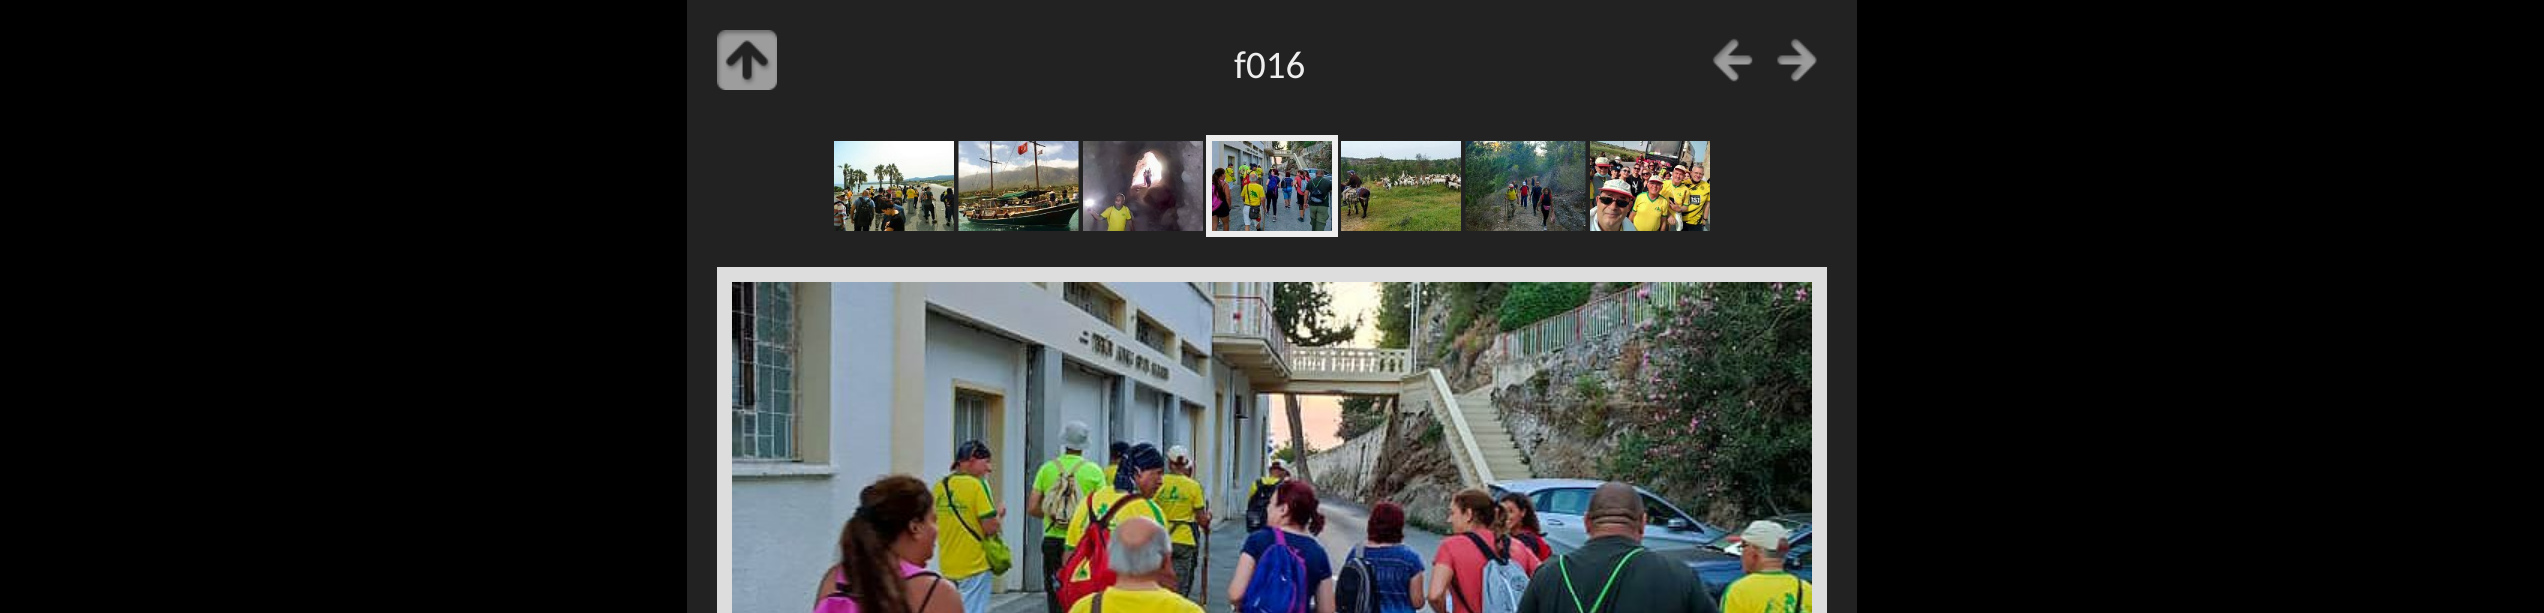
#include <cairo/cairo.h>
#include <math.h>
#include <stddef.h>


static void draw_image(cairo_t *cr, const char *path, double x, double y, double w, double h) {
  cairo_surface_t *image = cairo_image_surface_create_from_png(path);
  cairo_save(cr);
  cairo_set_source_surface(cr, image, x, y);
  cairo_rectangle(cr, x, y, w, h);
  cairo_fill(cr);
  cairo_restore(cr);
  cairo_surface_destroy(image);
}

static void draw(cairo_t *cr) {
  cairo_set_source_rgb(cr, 0, 0, 0);
  cairo_paint(cr);
  cairo_set_source_rgb(cr, 34 / 255.0, 34 / 255.0, 34 / 255.0);
  cairo_rectangle(cr, 687, 0, 1170, 613);
  cairo_fill(cr);
  draw_image(cr, "images/1.png", 717, 30, 60, 60);
  draw_image(cr, "images/2.png", 1712, 38, 41, 44);
  draw_image(cr, "images/3.png", 1777, 38, 40, 44);
  draw_image(cr, "images/4.png", 834, 141, 120, 90);
  draw_image(cr, "images/5.png", 958, 141, 121, 90);
  draw_image(cr, "images/6.png", 1083, 141, 120, 90);
  cairo_rectangle(cr, 1209, 138, 126, 96);
  cairo_set_source_rgb(cr, 238 / 255.0, 238 / 255.0, 238 / 255.0);
  cairo_set_line_width(cr, 6);
  cairo_stroke(cr);
  draw_image(cr, "images/7.png", 1212, 141, 120, 90);
  draw_image(cr, "images/8.png", 1341, 141, 120, 90);
  draw_image(cr, "images/9.png", 1465, 141, 121, 90);
  draw_image(cr, "images/10.png", 1590, 141, 120, 90);
  cairo_set_source_rgb(cr, 221 / 255.0, 221 / 255.0, 221 / 255.0);
  cairo_rectangle(cr, 717, 267, 1110, 346);
  cairo_fill(cr);
  draw_image(cr, "images/11.png", 732, 282, 1080, 331);
  cairo_select_font_face(cr, "Carlito", CAIRO_FONT_SLANT_NORMAL, CAIRO_FONT_WEIGHT_NORMAL);
  cairo_set_font_size(cr, 39);
  cairo_set_source_rgb(cr, 238 / 255.0, 238 / 255.0, 238 / 255.0);
  cairo_move_to(cr, 1234, 78);
  cairo_show_text(cr, "f016");
}

int main(void) {
  cairo_surface_t *surface = cairo_image_surface_create(CAIRO_FORMAT_RGB24, 2544, 613);
  cairo_t *cr = cairo_create(surface);
  cairo_font_options_t *options = cairo_font_options_create();
  cairo_font_options_set_hint_metrics(options, CAIRO_HINT_METRICS_OFF);
  cairo_font_options_set_hint_style(options, CAIRO_HINT_STYLE_NONE);
  cairo_set_font_options(cr, options);
  cairo_set_miter_limit(cr, 4);
  draw(cr);
  cairo_surface_write_to_png(surface, "out.png");
  cairo_font_options_destroy(options);
  cairo_destroy(cr);
  cairo_surface_destroy(surface);
  return 0;
}
